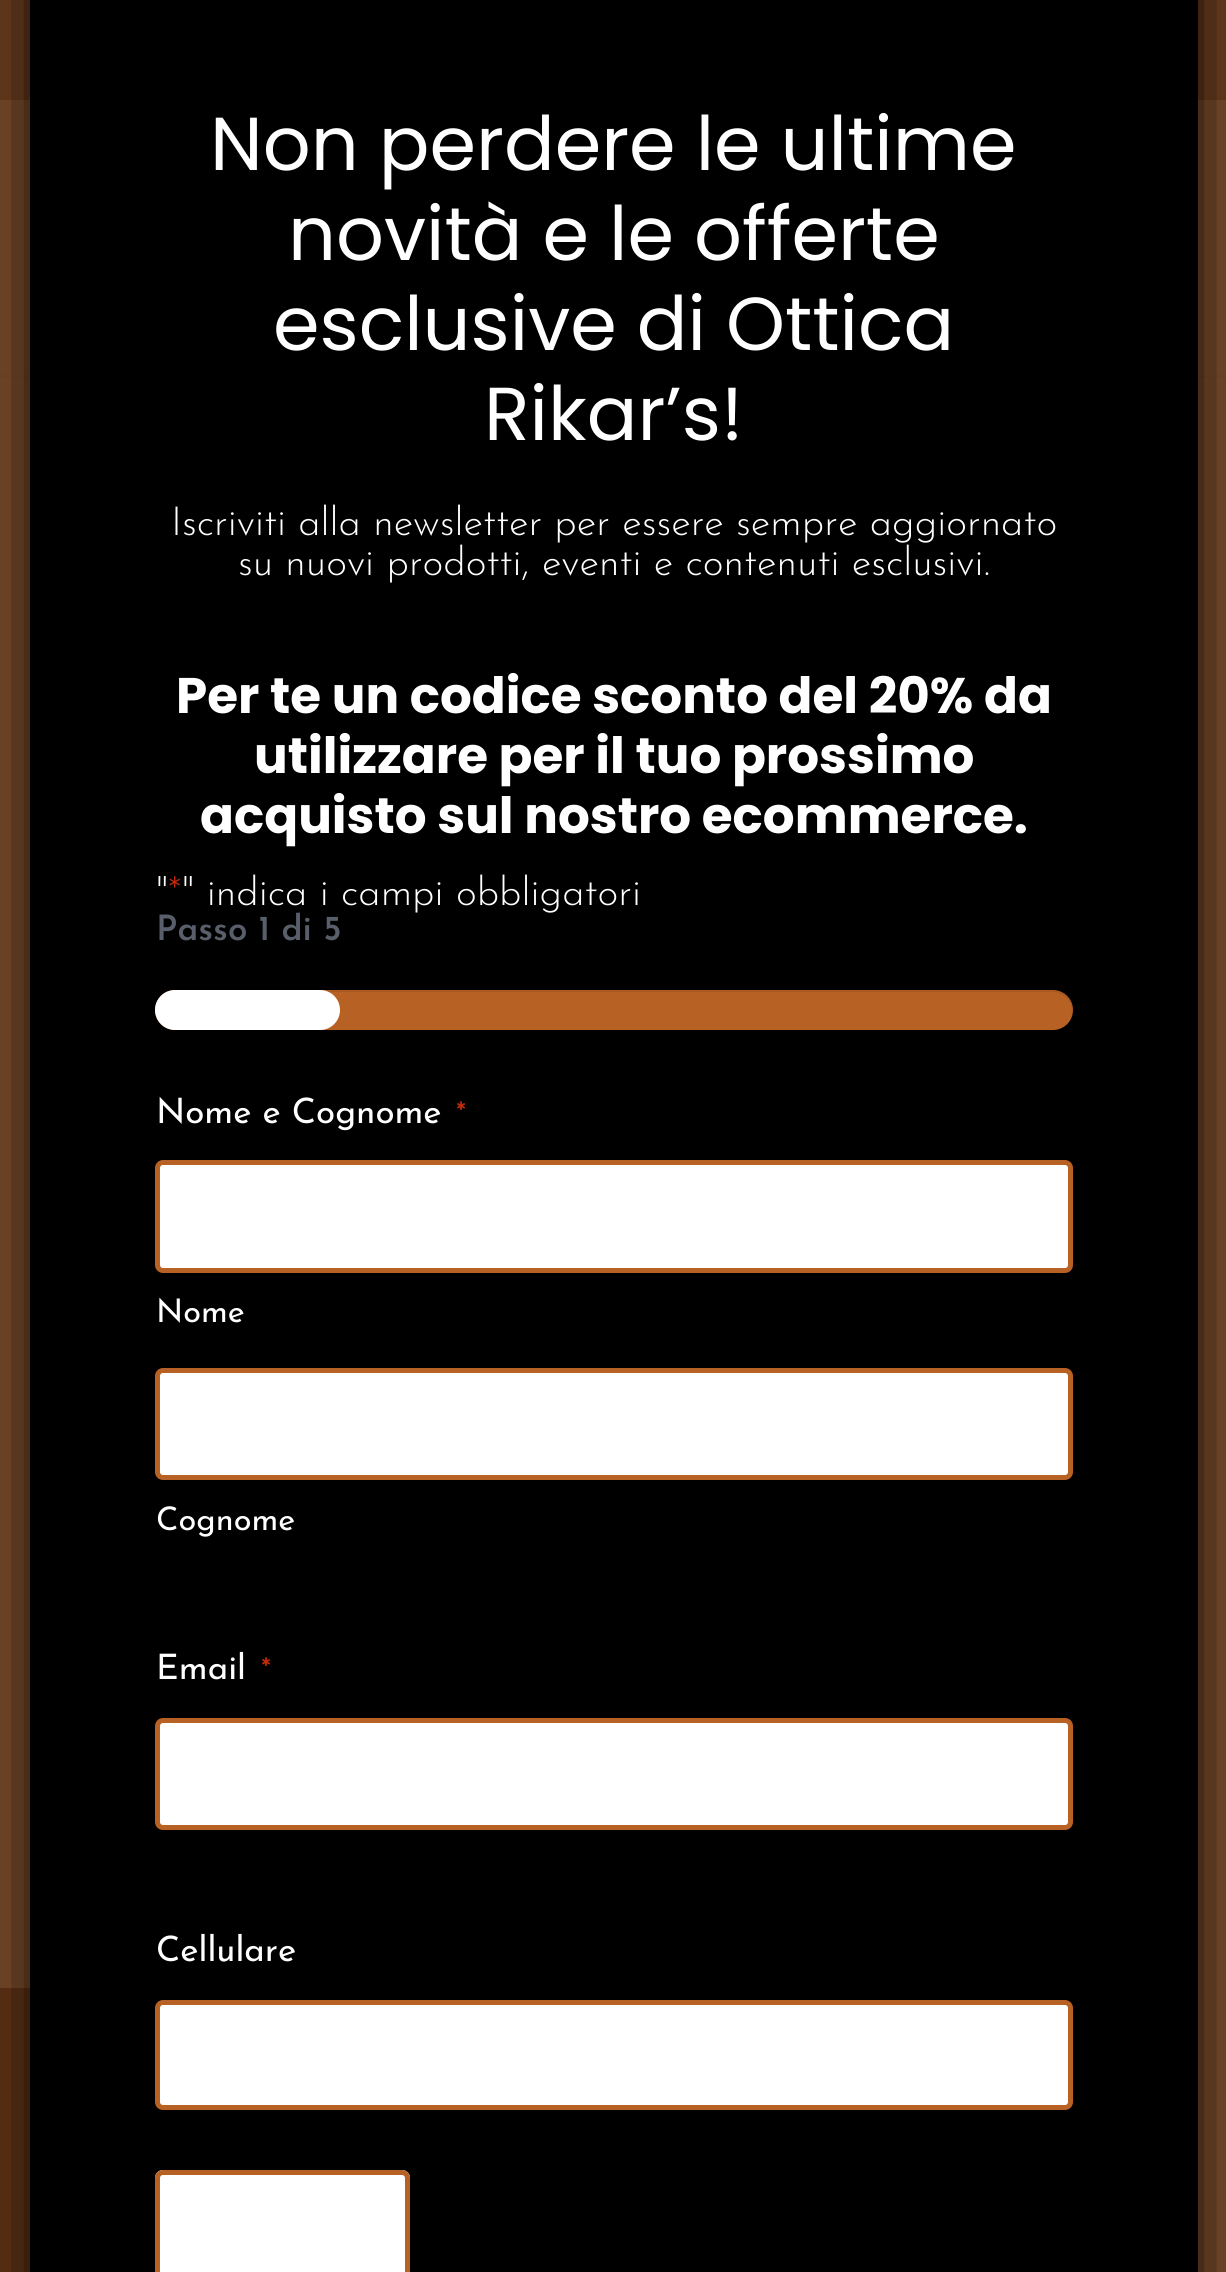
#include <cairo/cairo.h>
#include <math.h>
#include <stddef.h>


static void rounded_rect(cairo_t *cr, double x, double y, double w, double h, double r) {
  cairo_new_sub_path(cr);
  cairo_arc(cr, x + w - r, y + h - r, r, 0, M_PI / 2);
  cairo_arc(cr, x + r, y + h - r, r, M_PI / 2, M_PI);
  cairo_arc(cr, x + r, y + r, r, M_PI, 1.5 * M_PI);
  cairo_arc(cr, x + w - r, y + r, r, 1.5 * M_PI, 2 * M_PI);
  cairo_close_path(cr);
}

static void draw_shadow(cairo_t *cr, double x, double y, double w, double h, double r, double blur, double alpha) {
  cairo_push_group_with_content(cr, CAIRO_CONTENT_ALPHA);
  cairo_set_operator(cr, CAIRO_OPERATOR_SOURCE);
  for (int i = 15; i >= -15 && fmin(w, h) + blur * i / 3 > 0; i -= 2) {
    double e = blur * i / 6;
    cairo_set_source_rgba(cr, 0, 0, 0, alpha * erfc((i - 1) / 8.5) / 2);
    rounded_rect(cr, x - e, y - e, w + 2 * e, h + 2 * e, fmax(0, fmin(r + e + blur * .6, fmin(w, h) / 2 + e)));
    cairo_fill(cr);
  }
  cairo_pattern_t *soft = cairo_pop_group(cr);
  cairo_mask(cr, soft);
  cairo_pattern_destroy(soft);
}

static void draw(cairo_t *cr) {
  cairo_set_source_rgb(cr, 140 / 255.0, 86 / 255.0, 48 / 255.0);
  cairo_paint(cr);
  cairo_set_source_rgb(cr, 123 / 255.0, 69 / 255.0, 34 / 255.0);
  cairo_rectangle(cr, 0, 0, 1226, 100);
  cairo_fill(cr);
  cairo_set_source_rgb(cr, 138 / 255.0, 83 / 255.0, 46 / 255.0);
  cairo_new_path(cr);
  cairo_move_to(cr, 0, 375);
  cairo_line_to(cr, 0, 378);
  cairo_line_to(cr, 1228, 378);
  cairo_line_to(cr, 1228, 103);
  cairo_line_to(cr, 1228, 375);
  cairo_close_path(cr);
  cairo_fill(cr);
  cairo_set_source_rgb(cr, 110 / 255.0, 58 / 255.0, 23 / 255.0);
  cairo_rectangle(cr, 0, 1988, 30, 284);
  cairo_fill(cr);
  cairo_set_source_rgb(cr, 2 / 255.0, 2 / 255.0, 2 / 255.0);
  draw_shadow(cr, 30, -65, 1168, 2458, 8, 37.5, 1);
  cairo_set_source_rgb(cr, 0, 0, 0);
  cairo_rectangle(cr, 30, 0, 1168, 2272);
  cairo_fill(cr);
  cairo_set_source_rgb(cr, 184 / 255.0, 97 / 255.0, 37 / 255.0);
  rounded_rect(cr, 155, 990, 918, 40, 20);
  cairo_fill(cr);
  cairo_set_source_rgba(cr, 0, 0, 0, 0.08);
  cairo_new_path(cr);
  cairo_move_to(cr, 175, 992);
  cairo_line_to(cr, 1052, 992);
  cairo_curve_to(cr, 1064, 992, 1072, 1001, 1072, 1012);
  cairo_line_to(cr, 1071, 1018);
  cairo_curve_to(cr, 1072, 1016, 1073, 1013, 1073, 1010);
  cairo_curve_to(cr, 1073, 999, 1064, 990, 1053, 990);
  cairo_line_to(cr, 175, 990);
  cairo_curve_to(cr, 164, 990, 155, 999, 155, 1010);
  cairo_line_to(cr, 155, 1011);
  cairo_curve_to(cr, 156, 1000, 164, 992, 175, 992);
  cairo_close_path(cr);
  cairo_fill(cr);
  cairo_set_source_rgb(cr, 1, 1, 1);
  rounded_rect(cr, 155, 990, 185, 40, 20);
  cairo_fill(cr);
  rounded_rect(cr, 157.5, 1162.5, 913, 108, 5.5);
  cairo_fill_preserve(cr);
  cairo_set_source_rgb(cr, 184 / 255.0, 97 / 255.0, 37 / 255.0);
  cairo_set_line_width(cr, 5);
  cairo_stroke(cr);
  cairo_set_source_rgb(cr, 1, 1, 1);
  rounded_rect(cr, 157.5, 1370.5, 913, 107, 5.5);
  cairo_fill_preserve(cr);
  cairo_set_source_rgb(cr, 184 / 255.0, 97 / 255.0, 37 / 255.0);
  cairo_stroke(cr);
  cairo_set_source_rgb(cr, 1, 1, 1);
  rounded_rect(cr, 157.5, 1720.5, 913, 107, 5.5);
  cairo_fill_preserve(cr);
  cairo_set_source_rgb(cr, 184 / 255.0, 97 / 255.0, 37 / 255.0);
  cairo_stroke(cr);
  cairo_set_source_rgb(cr, 1, 1, 1);
  rounded_rect(cr, 157.5, 2002.5, 913, 105, 5.5);
  cairo_fill_preserve(cr);
  cairo_set_source_rgb(cr, 184 / 255.0, 97 / 255.0, 37 / 255.0);
  cairo_stroke(cr);
  cairo_set_source_rgb(cr, 1, 1, 1);
  cairo_new_path(cr);
  cairo_move_to(cr, 163, 2170);
  cairo_line_to(cr, 402, 2170);
  cairo_curve_to(cr, 406.5, 2170, 410, 2173.5, 410, 2178);
  cairo_line_to(cr, 410, 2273);
  cairo_line_to(cr, 155, 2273);
  cairo_line_to(cr, 155, 2178);
  cairo_curve_to(cr, 155, 2173.5, 158.5, 2170, 163, 2170);
  cairo_close_path(cr);
  cairo_fill(cr);
  rounded_rect(cr, 157.5, 2172.5, 250, 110, 5.5);
  cairo_set_source_rgb(cr, 184 / 255.0, 97 / 255.0, 37 / 255.0);
  cairo_stroke(cr);
  cairo_select_font_face(cr, "Poppins", CAIRO_FONT_SLANT_NORMAL, CAIRO_FONT_WEIGHT_NORMAL);
  cairo_set_font_size(cr, 75);
  cairo_set_source_rgb(cr, 1, 1, 1);
  cairo_move_to(cr, 210, 170);
  cairo_show_text(cr, "Non perdere le ultime");
  cairo_move_to(cr, 288, 260);
  cairo_show_text(cr, "novità e le offerte");
  cairo_move_to(cr, 273, 350);
  cairo_show_text(cr, "esclusive di Ottica");
  cairo_move_to(cr, 484, 440);
  cairo_show_text(cr, "Rikar’s!");
  cairo_select_font_face(cr, "Josefin Sans Light", CAIRO_FONT_SLANT_NORMAL, CAIRO_FONT_WEIGHT_NORMAL);
  cairo_set_font_size(cr, 40);
  cairo_move_to(cr, 171, 535);
  cairo_show_text(cr, "Iscriviti alla newsletter per essere sempre aggiornato");
  cairo_move_to(cr, 238, 575);
  cairo_show_text(cr, "su nuovi prodotti, eventi e contenuti esclusivi.");
  cairo_select_font_face(cr, "Poppins", CAIRO_FONT_SLANT_NORMAL, CAIRO_FONT_WEIGHT_BOLD);
  cairo_set_font_size(cr, 50);
  cairo_move_to(cr, 176, 713);
  cairo_show_text(cr, "Per te un codice sconto del 20% da");
  cairo_move_to(cr, 254, 773);
  cairo_show_text(cr, "utilizzare per il tuo prossimo");
  cairo_move_to(cr, 200, 833);
  cairo_show_text(cr, "acquisto sul nostro ecommerce.");
  cairo_select_font_face(cr, "Josefin Sans Light", CAIRO_FONT_SLANT_NORMAL, CAIRO_FONT_WEIGHT_NORMAL);
  cairo_set_font_size(cr, 40);
  cairo_move_to(cr, 156, 905);
  cairo_show_text(cr, "\"");
  cairo_set_source_rgb(cr, 192 / 255.0, 43 / 255.0, 10 / 255.0);
  cairo_move_to(cr, 168, 905);
  cairo_show_text(cr, "*");
  cairo_set_source_rgb(cr, 1, 1, 1);
  cairo_move_to(cr, 182, 905);
  cairo_show_text(cr, "\" indica i campi obbligatori");
  cairo_select_font_face(cr, "Josefin Sans SemiBold", CAIRO_FONT_SLANT_NORMAL, CAIRO_FONT_WEIGHT_NORMAL);
  cairo_set_font_size(cr, 35);
  cairo_set_source_rgb(cr, 88 / 255.0, 94 / 255.0, 106 / 255.0);
  cairo_move_to(cr, 156, 940);
  cairo_show_text(cr, "Passo 1 di 5");
  cairo_select_font_face(cr, "Josefin Sans", CAIRO_FONT_SLANT_NORMAL, CAIRO_FONT_WEIGHT_NORMAL);
  cairo_set_source_rgb(cr, 1, 1, 1);
  cairo_move_to(cr, 156, 1123);
  cairo_show_text(cr, "Nome e Cognome");
  cairo_set_font_size(cr, 30);
  cairo_set_source_rgb(cr, 192 / 255.0, 43 / 255.0, 10 / 255.0);
  cairo_move_to(cr, 456, 1123);
  cairo_show_text(cr, "*");
  cairo_set_font_size(cr, 32.5);
  cairo_set_source_rgb(cr, 1, 1, 1);
  cairo_move_to(cr, 156, 1322);
  cairo_show_text(cr, "Nome");
  cairo_move_to(cr, 156, 1530);
  cairo_show_text(cr, "Cognome");
  cairo_set_font_size(cr, 35);
  cairo_move_to(cr, 156, 1679);
  cairo_show_text(cr, "Email");
  cairo_set_font_size(cr, 30);
  cairo_set_source_rgb(cr, 192 / 255.0, 43 / 255.0, 10 / 255.0);
  cairo_move_to(cr, 261, 1679);
  cairo_show_text(cr, "*");
  cairo_set_font_size(cr, 35);
  cairo_set_source_rgb(cr, 1, 1, 1);
  cairo_move_to(cr, 156, 1961);
  cairo_show_text(cr, "Cellulare");
}

int main(void) {
  cairo_surface_t *surface = cairo_image_surface_create(CAIRO_FORMAT_RGB24, 1226, 2272);
  cairo_t *cr = cairo_create(surface);
  cairo_font_options_t *options = cairo_font_options_create();
  cairo_font_options_set_hint_metrics(options, CAIRO_HINT_METRICS_OFF);
  cairo_font_options_set_hint_style(options, CAIRO_HINT_STYLE_NONE);
  cairo_set_font_options(cr, options);
  cairo_set_miter_limit(cr, 4);
  draw(cr);
  cairo_surface_write_to_png(surface, "out.png");
  cairo_font_options_destroy(options);
  cairo_destroy(cr);
  cairo_surface_destroy(surface);
  return 0;
}
